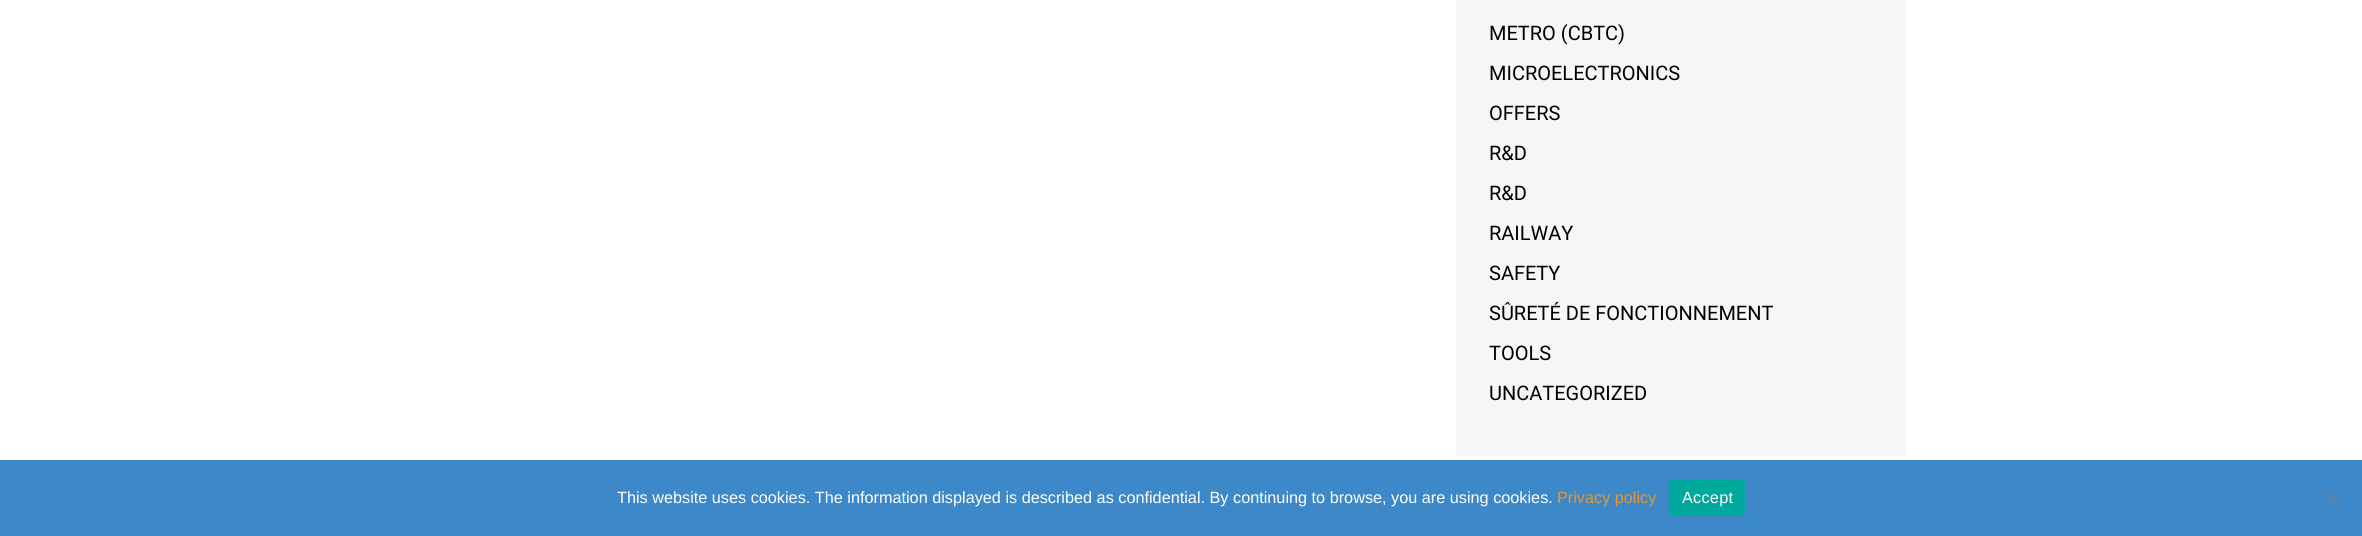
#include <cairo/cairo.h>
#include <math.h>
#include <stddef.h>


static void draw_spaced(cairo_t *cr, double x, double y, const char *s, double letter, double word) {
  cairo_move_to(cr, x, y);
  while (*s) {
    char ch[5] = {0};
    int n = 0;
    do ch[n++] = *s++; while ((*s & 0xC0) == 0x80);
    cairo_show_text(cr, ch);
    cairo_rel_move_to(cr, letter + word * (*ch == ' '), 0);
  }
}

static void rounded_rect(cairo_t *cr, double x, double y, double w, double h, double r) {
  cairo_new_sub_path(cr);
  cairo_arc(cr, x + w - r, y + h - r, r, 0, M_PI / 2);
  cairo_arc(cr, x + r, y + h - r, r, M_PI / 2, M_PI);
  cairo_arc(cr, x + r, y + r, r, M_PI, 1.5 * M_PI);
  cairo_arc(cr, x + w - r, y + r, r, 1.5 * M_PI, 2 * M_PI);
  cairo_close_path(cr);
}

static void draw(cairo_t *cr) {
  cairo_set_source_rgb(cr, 1, 1, 1);
  cairo_paint(cr);
  cairo_set_source_rgb(cr, 246 / 255.0, 246 / 255.0, 246 / 255.0);
  cairo_rectangle(cr, 1456, 0, 450, 456);
  cairo_fill(cr);
  cairo_set_source_rgb(cr, 60 / 255.0, 136 / 255.0, 201 / 255.0);
  cairo_rectangle(cr, 0, 460, 2362, 76);
  cairo_fill(cr);
  cairo_set_source_rgb(cr, 0, 169 / 255.0, 157 / 255.0);
  rounded_rect(cr, 1669, 479, 76, 37, 4);
  cairo_fill(cr);
  cairo_set_source_rgb(cr, 94 / 255.0, 132 / 255.0, 165 / 255.0);
  cairo_new_path(cr);
  cairo_move_to(cr, 2338, 491);
  cairo_line_to(cr, 2340, 492.5);
  cairo_line_to(cr, 2327, 506);
  cairo_line_to(cr, 2325, 504);
  cairo_close_path(cr);
  cairo_fill(cr);
  cairo_new_path(cr);
  cairo_move_to(cr, 2325, 492.5);
  cairo_line_to(cr, 2327, 491);
  cairo_line_to(cr, 2340, 504);
  cairo_line_to(cr, 2338, 506);
  cairo_close_path(cr);
  cairo_fill(cr);
  cairo_select_font_face(cr, "Roboto", CAIRO_FONT_SLANT_NORMAL, CAIRO_FONT_WEIGHT_NORMAL);
  cairo_set_font_size(cr, 20);
  cairo_set_source_rgb(cr, 0, 0, 0);
  cairo_move_to(cr, 1489, 40);
  cairo_show_text(cr, "METRO (CBTC)");
  cairo_move_to(cr, 1489, 80);
  cairo_show_text(cr, "MICROELECTRONICS");
  cairo_move_to(cr, 1489, 120);
  cairo_show_text(cr, "OFFERS");
  cairo_move_to(cr, 1489, 160);
  cairo_show_text(cr, "R&D");
  cairo_move_to(cr, 1489, 200);
  cairo_show_text(cr, "R&D");
  cairo_move_to(cr, 1489, 240);
  cairo_show_text(cr, "RAILWAY");
  cairo_move_to(cr, 1489, 280);
  cairo_show_text(cr, "SAFETY");
  cairo_move_to(cr, 1489, 320);
  cairo_show_text(cr, "SÛRETÉ DE FONCTIONNEMENT");
  cairo_move_to(cr, 1489, 360);
  cairo_show_text(cr, "TOOLS");
  cairo_move_to(cr, 1489, 400);
  cairo_show_text(cr, "UNCATEGORIZED");
  cairo_select_font_face(cr, "Liberation Sans", CAIRO_FONT_SLANT_NORMAL, CAIRO_FONT_WEIGHT_NORMAL);
  cairo_set_font_size(cr, 16.25);
  cairo_set_source_rgb(cr, 1, 1, 1);
  cairo_move_to(cr, 617, 503);
  cairo_show_text(cr, "This website uses cookies. The information displayed is described as confidential. By continuing to browse, you are using cookies.");
  cairo_set_source_rgb(cr, 230 / 255.0, 150 / 255.0, 50 / 255.0);
  cairo_move_to(cr, 1557, 503);
  cairo_show_text(cr, "Privacy policy");
  cairo_set_source_rgb(cr, 1, 1, 1);
  draw_spaced(cr, 1682, 503, "Accept", 0.25, 0);
}

int main(void) {
  cairo_surface_t *surface = cairo_image_surface_create(CAIRO_FORMAT_RGB24, 2362, 536);
  cairo_t *cr = cairo_create(surface);
  cairo_font_options_t *options = cairo_font_options_create();
  cairo_font_options_set_hint_metrics(options, CAIRO_HINT_METRICS_OFF);
  cairo_font_options_set_hint_style(options, CAIRO_HINT_STYLE_NONE);
  cairo_set_font_options(cr, options);
  cairo_set_miter_limit(cr, 4);
  draw(cr);
  cairo_surface_write_to_png(surface, "out.png");
  cairo_font_options_destroy(options);
  cairo_destroy(cr);
  cairo_surface_destroy(surface);
  return 0;
}
